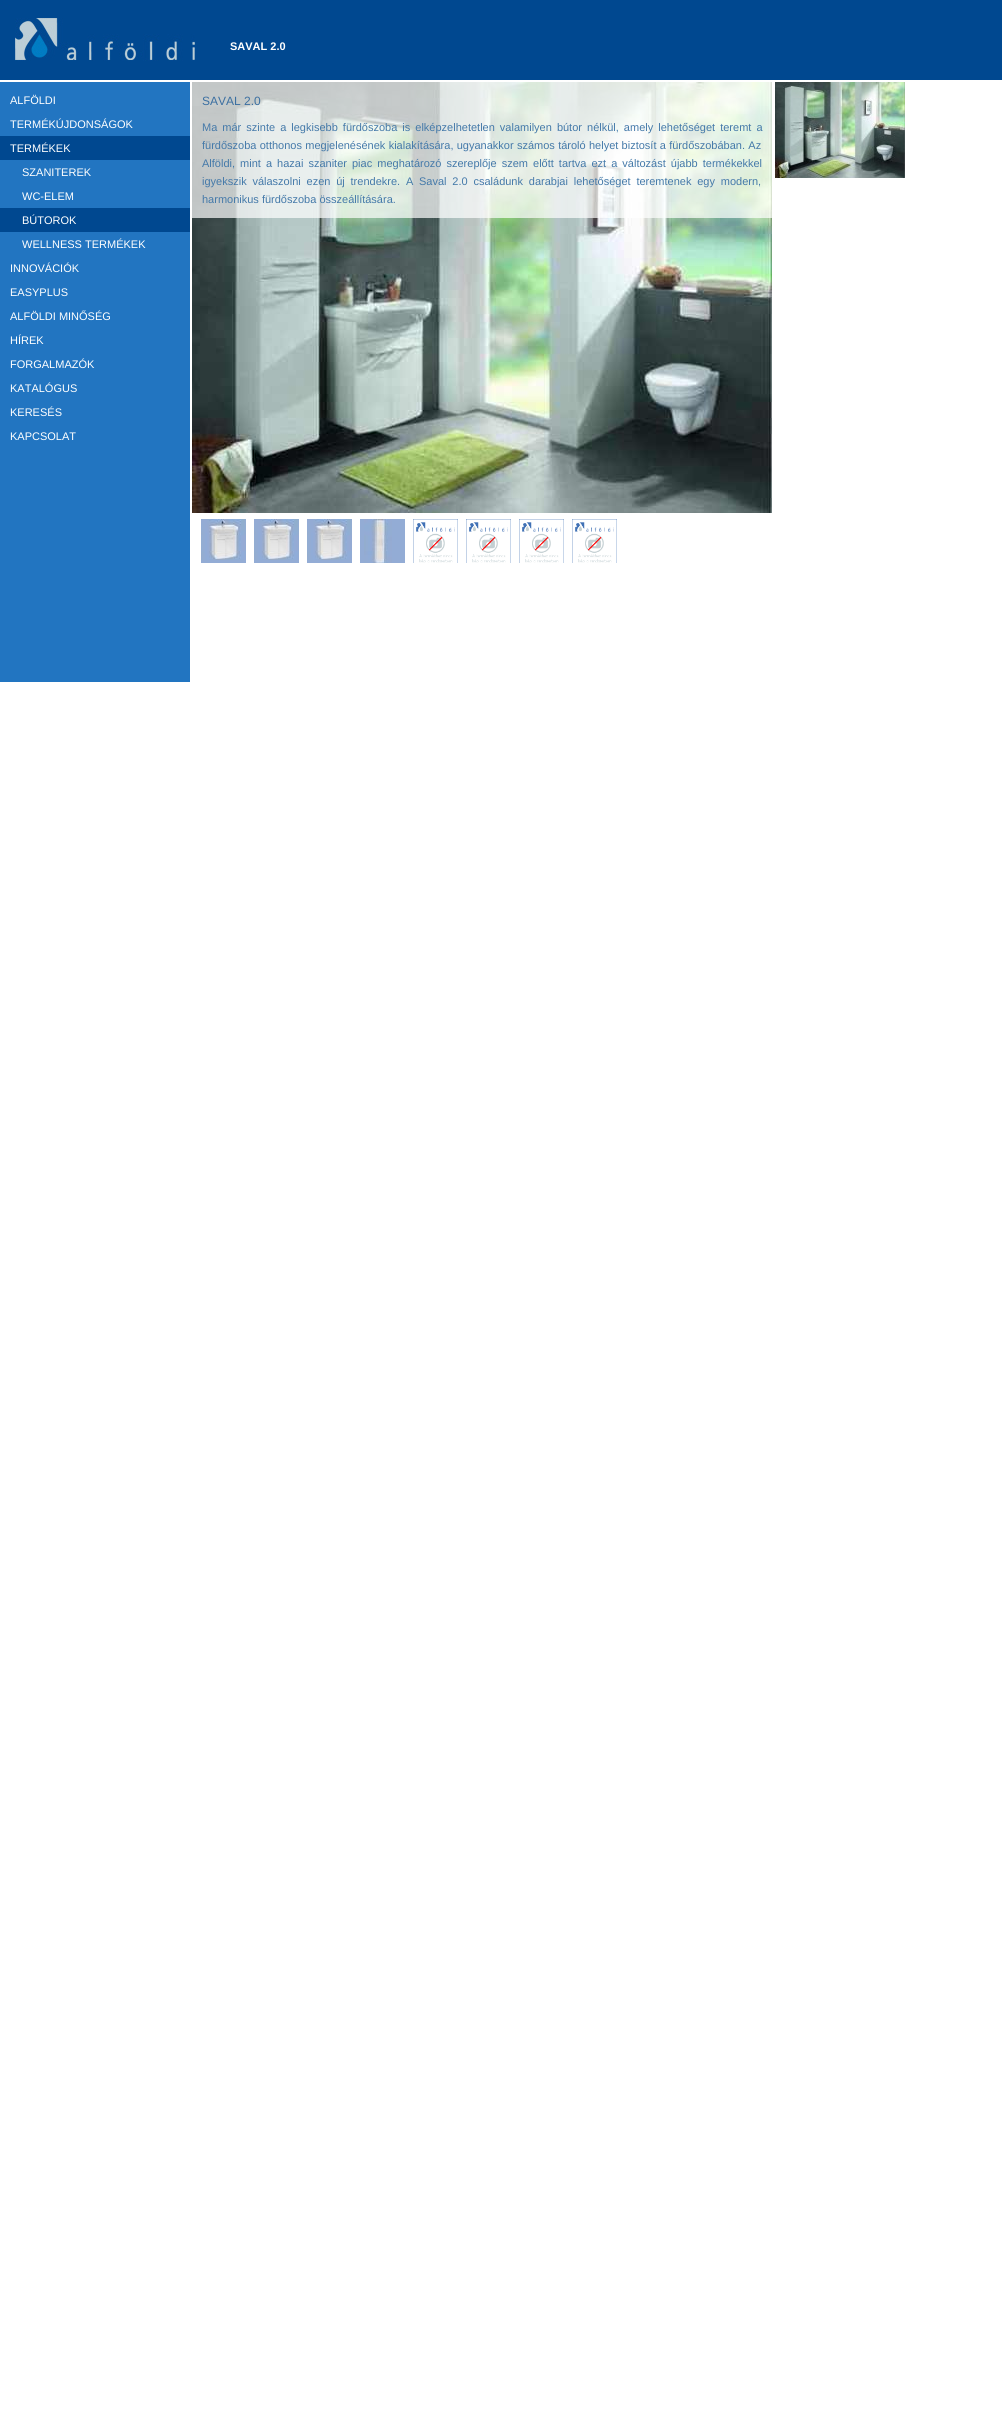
#include <cairo/cairo.h>
#include <math.h>
#include <stddef.h>


static void draw_spaced(cairo_t *cr, double x, double y, const char *s, double letter, double word) {
  cairo_move_to(cr, x, y);
  while (*s) {
    char ch[5] = {0};
    int n = 0;
    do ch[n++] = *s++; while ((*s & 0xC0) == 0x80);
    cairo_show_text(cr, ch);
    cairo_rel_move_to(cr, letter + word * (*ch == ' '), 0);
  }
}

static void draw_image(cairo_t *cr, const char *path, double x, double y, double w, double h) {
  cairo_surface_t *image = cairo_image_surface_create_from_png(path);
  cairo_save(cr);
  cairo_set_source_surface(cr, image, x, y);
  cairo_rectangle(cr, x, y, w, h);
  cairo_fill(cr);
  cairo_restore(cr);
  cairo_surface_destroy(image);
}

static void draw(cairo_t *cr) {
  cairo_set_source_rgb(cr, 1, 1, 1);
  cairo_paint(cr);
  cairo_set_source_rgb(cr, 0, 72 / 255.0, 144 / 255.0);
  cairo_rectangle(cr, 0, 0, 1002, 80);
  cairo_fill(cr);
  draw_image(cr, "images/1.png", 15, 18, 180, 43);
  cairo_set_source_rgb(cr, 34 / 255.0, 117 / 255.0, 193 / 255.0);
  cairo_rectangle(cr, 0, 82, 190, 600);
  cairo_fill(cr);
  cairo_set_source_rgb(cr, 0, 72 / 255.0, 144 / 255.0);
  cairo_rectangle(cr, 0, 208, 190, 24);
  cairo_fill(cr);
  cairo_rectangle(cr, 0, 136, 190, 24);
  cairo_fill(cr);
  draw_image(cr, "images/2.png", 192, 82, 580, 431);
  cairo_set_source_rgba(cr, 1, 1, 1, 0.7);
  cairo_rectangle(cr, 192, 82, 580, 136);
  cairo_fill(cr);
  cairo_set_source_rgb(cr, 147 / 255.0, 172 / 255.0, 213 / 255.0);
  cairo_rectangle(cr, 201, 560, 45, 3);
  cairo_fill(cr);
  draw_image(cr, "images/3.png", 201, 519, 45, 41);
  cairo_rectangle(cr, 254, 560, 45, 3);
  cairo_fill(cr);
  draw_image(cr, "images/3.png", 254, 519, 45, 41);
  cairo_rectangle(cr, 307, 560, 45, 3);
  cairo_fill(cr);
  draw_image(cr, "images/3.png", 307, 519, 45, 41);
  cairo_rectangle(cr, 360, 519, 45, 44);
  cairo_fill(cr);
  draw_image(cr, "images/4.png", 364, 519, 28, 44);
  draw_image(cr, "images/5.png", 413, 519, 45, 44);
  draw_image(cr, "images/6.png", 466, 519, 45, 44);
  draw_image(cr, "images/5.png", 519, 519, 45, 44);
  draw_image(cr, "images/6.png", 572, 519, 45, 44);
  draw_image(cr, "images/7.png", 775, 82, 130, 96);
  cairo_select_font_face(cr, "Liberation Sans", CAIRO_FONT_SLANT_NORMAL, CAIRO_FONT_WEIGHT_BOLD);
  cairo_set_font_size(cr, 11);
  cairo_set_source_rgb(cr, 1, 1, 1);
  cairo_move_to(cr, 230, 50);
  cairo_show_text(cr, "SAVAL 2.0");
  cairo_select_font_face(cr, "Liberation Sans", CAIRO_FONT_SLANT_NORMAL, CAIRO_FONT_WEIGHT_NORMAL);
  cairo_move_to(cr, 22, 224);
  cairo_show_text(cr, "BÚTOROK");
  cairo_move_to(cr, 22, 176);
  cairo_show_text(cr, "SZANITEREK");
  cairo_move_to(cr, 22, 200);
  cairo_show_text(cr, "WC-ELEM");
  cairo_move_to(cr, 22, 248);
  cairo_show_text(cr, "WELLNESS TERMÉKEK");
  cairo_move_to(cr, 10, 152);
  cairo_show_text(cr, "TERMÉKEK");
  cairo_move_to(cr, 10, 104);
  cairo_show_text(cr, "ALFÖLDI");
  cairo_move_to(cr, 10, 128);
  cairo_show_text(cr, "TERMÉKÚJDONSÁGOK");
  cairo_move_to(cr, 10, 272);
  cairo_show_text(cr, "INNOVÁCIÓK");
  cairo_move_to(cr, 10, 296);
  cairo_show_text(cr, "EASYPLUS");
  cairo_move_to(cr, 10, 320);
  cairo_show_text(cr, "ALFÖLDI MINŐSÉG");
  cairo_move_to(cr, 10, 344);
  cairo_show_text(cr, "HÍREK");
  cairo_move_to(cr, 10, 368);
  cairo_show_text(cr, "FORGALMAZÓK");
  cairo_move_to(cr, 10, 392);
  cairo_show_text(cr, "KATALÓGUS");
  cairo_move_to(cr, 10, 416);
  cairo_show_text(cr, "KERESÉS");
  cairo_move_to(cr, 10, 440);
  cairo_show_text(cr, "KAPCSOLAT");
  cairo_set_font_size(cr, 12);
  cairo_set_source_rgb(cr, 59 / 255.0, 111 / 255.0, 161 / 255.0);
  cairo_move_to(cr, 202, 105);
  cairo_show_text(cr, "SAVAL 2.0");
  cairo_set_font_size(cr, 11);
  cairo_set_source_rgb(cr, 68 / 255.0, 121 / 255.0, 169 / 255.0);
  draw_spaced(cr, 202, 131, "Ma már szinte a legkisebb fürdőszoba is elképzelhetetlen valamilyen bútor nélkül, amely lehetőséget teremt a", 0, 2);
  draw_spaced(cr, 202, 149, "fürdőszoba otthonos megjelenésének kialakítására, ugyanakkor számos tároló helyet biztosít a fürdőszobában. Az", 0, 0.25);
  draw_spaced(cr, 202, 167, "Alföldi, mint a hazai szaniter piac meghatározó szereplője szem előtt tartva ezt a változást újabb termékekkel", 0, 2);
  draw_spaced(cr, 202, 185, "igyekszik válaszolni ezen új trendekre. A Saval 2.0 családunk darabjai lehetőséget teremtenek egy modern,", 0, 2.75);
  cairo_move_to(cr, 202, 203);
  cairo_show_text(cr, "harmonikus fürdőszoba összeállítására.");
}

int main(void) {
  cairo_surface_t *surface = cairo_image_surface_create(CAIRO_FORMAT_RGB24, 1002, 2416);
  cairo_t *cr = cairo_create(surface);
  cairo_font_options_t *options = cairo_font_options_create();
  cairo_font_options_set_hint_metrics(options, CAIRO_HINT_METRICS_OFF);
  cairo_font_options_set_hint_style(options, CAIRO_HINT_STYLE_NONE);
  cairo_set_font_options(cr, options);
  cairo_set_miter_limit(cr, 4);
  draw(cr);
  cairo_surface_write_to_png(surface, "out.png");
  cairo_font_options_destroy(options);
  cairo_destroy(cr);
  cairo_surface_destroy(surface);
  return 0;
}
